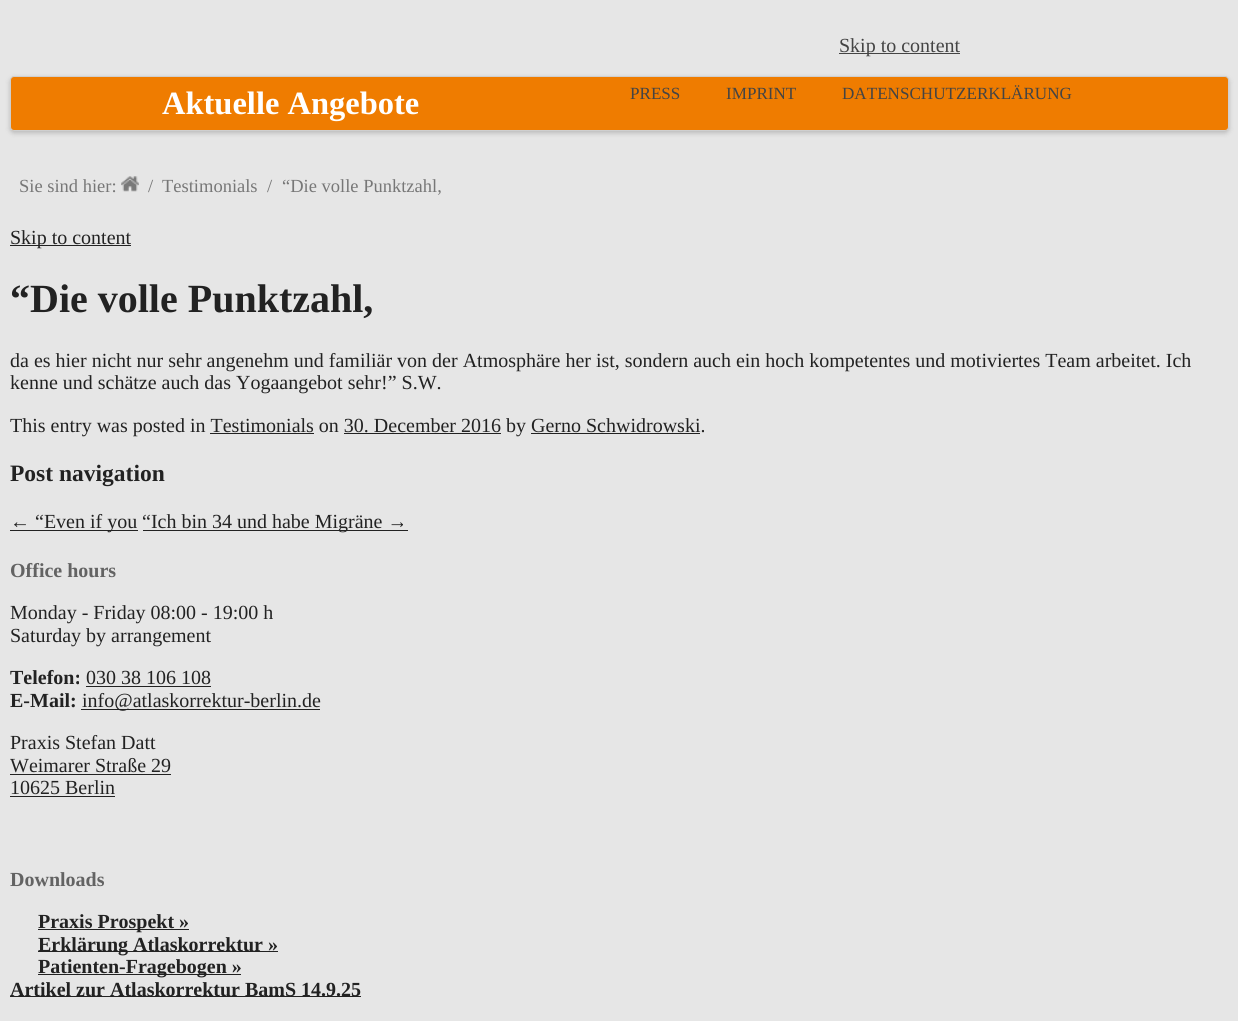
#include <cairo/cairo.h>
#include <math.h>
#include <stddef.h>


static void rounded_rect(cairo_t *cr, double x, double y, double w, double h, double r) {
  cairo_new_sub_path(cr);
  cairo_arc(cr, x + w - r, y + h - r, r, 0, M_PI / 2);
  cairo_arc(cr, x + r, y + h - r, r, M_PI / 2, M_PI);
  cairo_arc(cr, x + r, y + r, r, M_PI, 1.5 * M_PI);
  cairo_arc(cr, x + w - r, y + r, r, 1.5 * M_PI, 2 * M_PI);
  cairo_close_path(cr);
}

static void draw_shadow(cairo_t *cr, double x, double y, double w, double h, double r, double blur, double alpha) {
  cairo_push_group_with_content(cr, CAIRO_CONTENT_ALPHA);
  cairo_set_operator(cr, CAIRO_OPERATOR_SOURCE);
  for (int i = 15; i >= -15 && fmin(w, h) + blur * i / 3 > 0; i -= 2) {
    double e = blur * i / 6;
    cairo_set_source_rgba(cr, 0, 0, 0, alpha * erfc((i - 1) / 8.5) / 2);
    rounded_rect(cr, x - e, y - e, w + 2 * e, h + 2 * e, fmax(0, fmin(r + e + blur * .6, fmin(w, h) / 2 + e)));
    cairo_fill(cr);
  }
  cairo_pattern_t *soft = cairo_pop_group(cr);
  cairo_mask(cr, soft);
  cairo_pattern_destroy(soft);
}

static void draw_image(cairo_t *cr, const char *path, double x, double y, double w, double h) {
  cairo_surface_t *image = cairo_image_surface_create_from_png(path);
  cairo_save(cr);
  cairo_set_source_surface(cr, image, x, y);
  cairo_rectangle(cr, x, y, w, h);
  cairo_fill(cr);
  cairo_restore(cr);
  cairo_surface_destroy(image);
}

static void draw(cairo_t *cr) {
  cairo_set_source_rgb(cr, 230 / 255.0, 230 / 255.0, 230 / 255.0);
  cairo_paint(cr);
  cairo_set_source_rgb(cr, 68 / 255.0, 68 / 255.0, 68 / 255.0);
  cairo_rectangle(cr, 839, 53, 121, 1);
  cairo_fill(cr);
  cairo_set_source_rgb(cr, 0, 0, 0);
  draw_shadow(cr, 10, 78, 1219, 55, 4, 2.5, 0.2);
  cairo_set_source_rgb(cr, 239 / 255.0, 124 / 255.0, 0);
  rounded_rect(cr, 10.5, 76.5, 1218, 54, 3.5);
  cairo_fill_preserve(cr);
  cairo_set_source_rgb(cr, 207 / 255.0, 207 / 255.0, 207 / 255.0);
  cairo_set_line_width(cr, 1);
  cairo_stroke(cr);
  draw_image(cr, "images/1.png", 121, 176, 18, 16);
  cairo_set_source_rgb(cr, 34 / 255.0, 34 / 255.0, 34 / 255.0);
  cairo_rectangle(cr, 10, 245, 121, 1);
  cairo_fill(cr);
  cairo_rectangle(cr, 210, 433, 104, 1);
  cairo_fill(cr);
  cairo_rectangle(cr, 344, 433, 157, 1);
  cairo_fill(cr);
  cairo_rectangle(cr, 531, 433, 169, 1);
  cairo_fill(cr);
  cairo_rectangle(cr, 10, 530, 128, 1);
  cairo_fill(cr);
  cairo_rectangle(cr, 143, 530, 265, 1);
  cairo_fill(cr);
  cairo_rectangle(cr, 86, 686, 125, 1);
  cairo_fill(cr);
  cairo_rectangle(cr, 81, 709, 239, 1);
  cairo_fill(cr);
  cairo_rectangle(cr, 10, 774, 161, 1);
  cairo_fill(cr);
  cairo_rectangle(cr, 10, 796, 105, 1);
  cairo_fill(cr);
  cairo_rectangle(cr, 38, 929, 151, 1);
  cairo_fill(cr);
  cairo_rectangle(cr, 38, 951, 240, 1);
  cairo_fill(cr);
  cairo_rectangle(cr, 38, 974, 203, 1);
  cairo_fill(cr);
  cairo_rectangle(cr, 10, 996, 351, 1);
  cairo_fill(cr);
  cairo_select_font_face(cr, "Liberation Serif", CAIRO_FONT_SLANT_NORMAL, CAIRO_FONT_WEIGHT_NORMAL);
  cairo_set_font_size(cr, 20);
  cairo_set_source_rgb(cr, 68 / 255.0, 68 / 255.0, 68 / 255.0);
  cairo_move_to(cr, 839, 52);
  cairo_show_text(cr, "Skip to content");
  cairo_set_font_size(cr, 17.1);
  cairo_move_to(cr, 630, 99);
  cairo_show_text(cr, "PRESS");
  cairo_move_to(cr, 726, 99);
  cairo_show_text(cr, "IMPRINT");
  cairo_move_to(cr, 842, 99);
  cairo_show_text(cr, "DATENSCHUTZERKLÄRUNG");
  cairo_select_font_face(cr, "Liberation Serif", CAIRO_FONT_SLANT_NORMAL, CAIRO_FONT_WEIGHT_BOLD);
  cairo_set_font_size(cr, 32.5);
  cairo_set_source_rgb(cr, 1, 1, 1);
  cairo_move_to(cr, 162, 114);
  cairo_show_text(cr, "Aktuelle Angebote");
  cairo_select_font_face(cr, "Liberation Serif", CAIRO_FONT_SLANT_NORMAL, CAIRO_FONT_WEIGHT_NORMAL);
  cairo_set_font_size(cr, 18.5);
  cairo_set_source_rgb(cr, 119 / 255.0, 119 / 255.0, 119 / 255.0);
  cairo_move_to(cr, 19, 192);
  cairo_show_text(cr, "Sie sind hier:");
  cairo_move_to(cr, 148, 192);
  cairo_show_text(cr, "/");
  cairo_move_to(cr, 162, 192);
  cairo_show_text(cr, "Testimonials");
  cairo_move_to(cr, 267, 192);
  cairo_show_text(cr, "/");
  cairo_move_to(cr, 282, 192);
  cairo_show_text(cr, "“Die volle Punktzahl,");
  cairo_set_font_size(cr, 20);
  cairo_set_source_rgb(cr, 34 / 255.0, 34 / 255.0, 34 / 255.0);
  cairo_move_to(cr, 10, 244);
  cairo_show_text(cr, "Skip to content");
  cairo_select_font_face(cr, "Liberation Serif", CAIRO_FONT_SLANT_NORMAL, CAIRO_FONT_WEIGHT_BOLD);
  cairo_set_font_size(cr, 40);
  cairo_move_to(cr, 10, 312);
  cairo_show_text(cr, "“Die volle Punktzahl,");
  cairo_select_font_face(cr, "Liberation Serif", CAIRO_FONT_SLANT_NORMAL, CAIRO_FONT_WEIGHT_NORMAL);
  cairo_set_font_size(cr, 20);
  cairo_move_to(cr, 10, 367);
  cairo_show_text(cr, "da es hier nicht nur sehr angenehm und familiär von der Atmosphäre her ist, sondern auch ein hoch kompetentes und motiviertes Team arbeitet. Ich");
  cairo_move_to(cr, 10, 389);
  cairo_show_text(cr, "kenne und schätze auch das Yogaangebot sehr!” S.W.");
  cairo_move_to(cr, 10, 432);
  cairo_show_text(cr, "This entry was posted in Testimonials on 30. December 2016 by Gerno Schwidrowski.");
  cairo_select_font_face(cr, "Liberation Serif", CAIRO_FONT_SLANT_NORMAL, CAIRO_FONT_WEIGHT_BOLD);
  cairo_set_font_size(cr, 23.5);
  cairo_move_to(cr, 10, 481);
  cairo_show_text(cr, "Post navigation");
  cairo_select_font_face(cr, "Liberation Serif", CAIRO_FONT_SLANT_NORMAL, CAIRO_FONT_WEIGHT_NORMAL);
  cairo_set_font_size(cr, 20);
  cairo_move_to(cr, 10, 528);
  cairo_show_text(cr, "← “Even if you");
  cairo_move_to(cr, 142, 528);
  cairo_show_text(cr, "“Ich bin 34 und habe Migräne →");
  cairo_select_font_face(cr, "Liberation Serif", CAIRO_FONT_SLANT_NORMAL, CAIRO_FONT_WEIGHT_BOLD);
  cairo_set_source_rgb(cr, 99 / 255.0, 99 / 255.0, 99 / 255.0);
  cairo_move_to(cr, 10, 577);
  cairo_show_text(cr, "Office hours");
  cairo_select_font_face(cr, "Liberation Serif", CAIRO_FONT_SLANT_NORMAL, CAIRO_FONT_WEIGHT_NORMAL);
  cairo_set_source_rgb(cr, 34 / 255.0, 34 / 255.0, 34 / 255.0);
  cairo_move_to(cr, 10, 619);
  cairo_show_text(cr, "Monday - Friday 08:00 - 19:00 h");
  cairo_move_to(cr, 10, 642);
  cairo_show_text(cr, "Saturday by arrangement");
  cairo_select_font_face(cr, "Liberation Serif", CAIRO_FONT_SLANT_NORMAL, CAIRO_FONT_WEIGHT_BOLD);
  cairo_move_to(cr, 10, 684);
  cairo_show_text(cr, "Telefon:");
  cairo_select_font_face(cr, "Liberation Serif", CAIRO_FONT_SLANT_NORMAL, CAIRO_FONT_WEIGHT_NORMAL);
  cairo_move_to(cr, 86, 684);
  cairo_show_text(cr, "030 38 106 108");
  cairo_select_font_face(cr, "Liberation Serif", CAIRO_FONT_SLANT_NORMAL, CAIRO_FONT_WEIGHT_BOLD);
  cairo_move_to(cr, 10, 707);
  cairo_show_text(cr, "E-Mail:");
  cairo_select_font_face(cr, "Liberation Serif", CAIRO_FONT_SLANT_NORMAL, CAIRO_FONT_WEIGHT_NORMAL);
  cairo_move_to(cr, 82, 707);
  cairo_show_text(cr, "info@atlaskorrektur-berlin.de");
  cairo_move_to(cr, 10, 749);
  cairo_show_text(cr, "Praxis Stefan Datt");
  cairo_move_to(cr, 10, 772);
  cairo_show_text(cr, "Weimarer Straße 29");
  cairo_move_to(cr, 10, 794);
  cairo_show_text(cr, "10625 Berlin");
  cairo_select_font_face(cr, "Liberation Serif", CAIRO_FONT_SLANT_NORMAL, CAIRO_FONT_WEIGHT_BOLD);
  cairo_set_source_rgb(cr, 99 / 255.0, 99 / 255.0, 99 / 255.0);
  cairo_move_to(cr, 10, 886);
  cairo_show_text(cr, "Downloads");
  cairo_set_source_rgb(cr, 34 / 255.0, 34 / 255.0, 34 / 255.0);
  cairo_move_to(cr, 38, 928);
  cairo_show_text(cr, "Praxis Prospekt »");
  cairo_move_to(cr, 38, 951);
  cairo_show_text(cr, "Erklärung Atlaskorrektur »");
  cairo_move_to(cr, 38, 973);
  cairo_show_text(cr, "Patienten-Fragebogen »");
  cairo_move_to(cr, 10, 996);
  cairo_show_text(cr, "Artikel zur Atlaskorrektur BamS 14.9.25");
}

int main(void) {
  cairo_surface_t *surface = cairo_image_surface_create(CAIRO_FORMAT_RGB24, 1238, 1021);
  cairo_t *cr = cairo_create(surface);
  cairo_font_options_t *options = cairo_font_options_create();
  cairo_font_options_set_hint_metrics(options, CAIRO_HINT_METRICS_OFF);
  cairo_font_options_set_hint_style(options, CAIRO_HINT_STYLE_NONE);
  cairo_set_font_options(cr, options);
  cairo_set_miter_limit(cr, 4);
  draw(cr);
  cairo_surface_write_to_png(surface, "out.png");
  cairo_font_options_destroy(options);
  cairo_destroy(cr);
  cairo_surface_destroy(surface);
  return 0;
}
